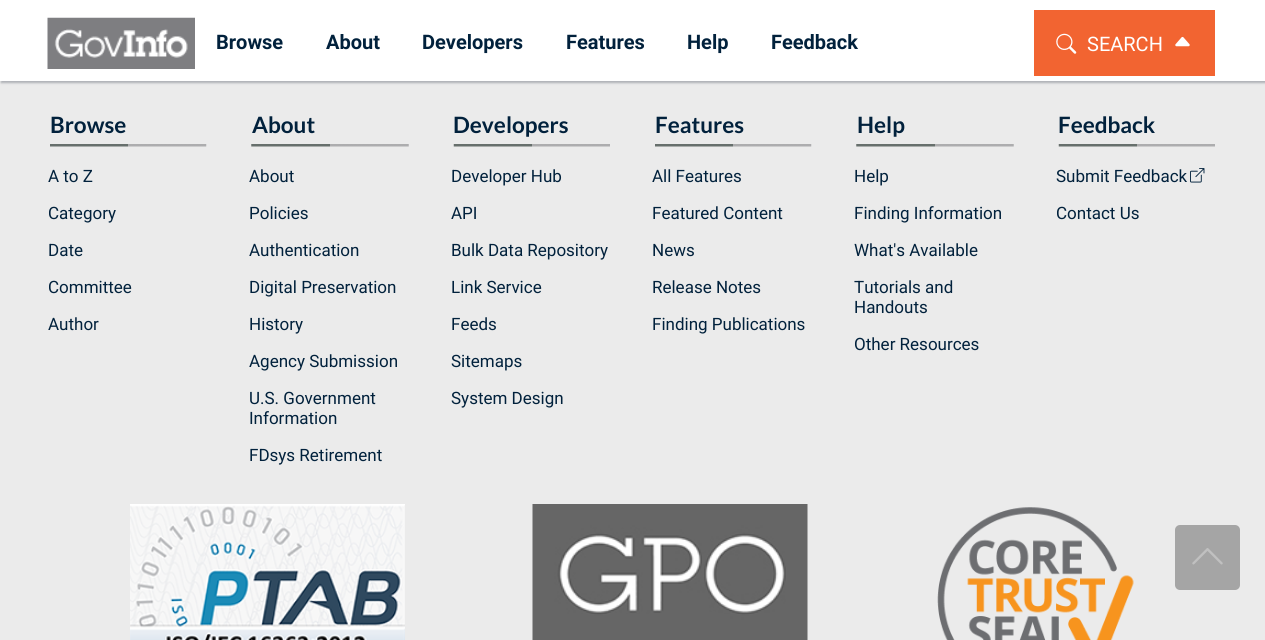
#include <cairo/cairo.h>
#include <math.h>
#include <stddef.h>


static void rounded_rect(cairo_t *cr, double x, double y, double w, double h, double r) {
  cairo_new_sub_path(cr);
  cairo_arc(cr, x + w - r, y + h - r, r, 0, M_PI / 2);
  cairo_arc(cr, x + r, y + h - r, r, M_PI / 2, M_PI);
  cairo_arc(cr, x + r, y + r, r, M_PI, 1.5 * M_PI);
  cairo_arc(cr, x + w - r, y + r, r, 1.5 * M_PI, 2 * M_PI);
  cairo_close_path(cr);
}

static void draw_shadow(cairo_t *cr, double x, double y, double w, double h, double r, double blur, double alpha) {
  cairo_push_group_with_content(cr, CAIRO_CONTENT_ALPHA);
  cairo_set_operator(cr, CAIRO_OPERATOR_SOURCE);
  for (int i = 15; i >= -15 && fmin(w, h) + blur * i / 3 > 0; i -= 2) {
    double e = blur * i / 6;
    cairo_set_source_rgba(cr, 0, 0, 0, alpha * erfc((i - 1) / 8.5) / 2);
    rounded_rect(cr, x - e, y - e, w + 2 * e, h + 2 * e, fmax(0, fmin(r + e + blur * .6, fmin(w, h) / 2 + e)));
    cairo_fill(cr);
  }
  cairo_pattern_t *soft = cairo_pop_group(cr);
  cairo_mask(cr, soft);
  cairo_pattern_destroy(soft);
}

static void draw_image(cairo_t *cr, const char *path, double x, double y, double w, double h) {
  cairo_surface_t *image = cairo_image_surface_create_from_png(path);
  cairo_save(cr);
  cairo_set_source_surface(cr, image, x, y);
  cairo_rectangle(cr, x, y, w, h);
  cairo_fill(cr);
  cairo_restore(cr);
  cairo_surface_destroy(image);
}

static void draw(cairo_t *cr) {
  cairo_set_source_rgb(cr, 235 / 255.0, 235 / 255.0, 235 / 255.0);
  cairo_paint(cr);
  cairo_set_source_rgb(cr, 175 / 255.0, 177 / 255.0, 182 / 255.0);
  draw_shadow(cr, 1, 1, 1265, 82, 0, 1, 1);
  cairo_set_source_rgb(cr, 1, 1, 1);
  cairo_rectangle(cr, 0, 0, 1265, 81);
  cairo_fill(cr);
  draw_image(cr, "images/1.png", 47, 17, 148, 52);
  cairo_set_source_rgb(cr, 242 / 255.0, 100 / 255.0, 49 / 255.0);
  cairo_rectangle(cr, 1034, 10, 181, 66);
  cairo_fill(cr);
  draw_image(cr, "images/2.png", 1056, 33, 21, 21);
  draw_image(cr, "images/3.png", 1175, 36, 15, 11);
  draw_image(cr, "images/4.png", 50, 144, 157, 3);
  draw_image(cr, "images/5.png", 251, 144, 158, 3);
  draw_image(cr, "images/6.png", 453, 144, 157, 3);
  draw_image(cr, "images/7.png", 655, 144, 157, 3);
  draw_image(cr, "images/8.png", 856, 144, 158, 3);
  draw_image(cr, "images/9.png", 1058, 144, 157, 3);
  draw_image(cr, "images/10.png", 1190, 168, 15, 15);
  draw_image(cr, "images/11.png", 130, 504, 275, 136);
  draw_image(cr, "images/12.png", 532, 504, 276, 136);
  draw_image(cr, "images/13.png", 937, 507, 197, 133);
  cairo_set_source_rgb(cr, 165 / 255.0, 165 / 255.0, 165 / 255.0);
  rounded_rect(cr, 1175, 525, 65, 65, 5);
  cairo_fill(cr);
  draw_image(cr, "images/14.png", 1192, 548, 31, 17);
  cairo_select_font_face(cr, "Roboto", CAIRO_FONT_SLANT_NORMAL, CAIRO_FONT_WEIGHT_BOLD);
  cairo_set_font_size(cr, 20);
  cairo_set_source_rgb(cr, 1 / 255.0, 33 / 255.0, 60 / 255.0);
  cairo_move_to(cr, 216, 49);
  cairo_show_text(cr, "Browse");
  cairo_move_to(cr, 326, 49);
  cairo_show_text(cr, "About");
  cairo_move_to(cr, 422, 49);
  cairo_show_text(cr, "Developers");
  cairo_move_to(cr, 566, 49);
  cairo_show_text(cr, "Features");
  cairo_move_to(cr, 687, 49);
  cairo_show_text(cr, "Help");
  cairo_move_to(cr, 771, 49);
  cairo_show_text(cr, "Feedback");
  cairo_select_font_face(cr, "Roboto", CAIRO_FONT_SLANT_NORMAL, CAIRO_FONT_WEIGHT_NORMAL);
  cairo_set_source_rgb(cr, 1, 1, 1);
  cairo_move_to(cr, 1087, 51);
  cairo_show_text(cr, "SEARCH");
  cairo_select_font_face(cr, "Lato", CAIRO_FONT_SLANT_NORMAL, CAIRO_FONT_WEIGHT_BOLD);
  cairo_set_font_size(cr, 22.5);
  cairo_set_source_rgb(cr, 1 / 255.0, 33 / 255.0, 60 / 255.0);
  cairo_move_to(cr, 50, 133);
  cairo_show_text(cr, "Browse");
  cairo_select_font_face(cr, "Roboto", CAIRO_FONT_SLANT_NORMAL, CAIRO_FONT_WEIGHT_NORMAL);
  cairo_set_font_size(cr, 17);
  cairo_move_to(cr, 48, 182);
  cairo_show_text(cr, "A to Z");
  cairo_move_to(cr, 48, 219);
  cairo_show_text(cr, "Category");
  cairo_move_to(cr, 48, 256);
  cairo_show_text(cr, "Date");
  cairo_move_to(cr, 48, 293);
  cairo_show_text(cr, "Committee");
  cairo_move_to(cr, 48, 330);
  cairo_show_text(cr, "Author");
  cairo_select_font_face(cr, "Lato", CAIRO_FONT_SLANT_NORMAL, CAIRO_FONT_WEIGHT_BOLD);
  cairo_set_font_size(cr, 22.5);
  cairo_move_to(cr, 252, 133);
  cairo_show_text(cr, "About");
  cairo_select_font_face(cr, "Roboto", CAIRO_FONT_SLANT_NORMAL, CAIRO_FONT_WEIGHT_NORMAL);
  cairo_set_font_size(cr, 17);
  cairo_move_to(cr, 249, 182);
  cairo_show_text(cr, "About");
  cairo_move_to(cr, 249, 219);
  cairo_show_text(cr, "Policies");
  cairo_move_to(cr, 249, 256);
  cairo_show_text(cr, "Authentication");
  cairo_move_to(cr, 249, 293);
  cairo_show_text(cr, "Digital Preservation");
  cairo_move_to(cr, 249, 330);
  cairo_show_text(cr, "History");
  cairo_move_to(cr, 249, 367);
  cairo_show_text(cr, "Agency Submission");
  cairo_move_to(cr, 249, 404);
  cairo_show_text(cr, "U.S. Government");
  cairo_move_to(cr, 249, 424);
  cairo_show_text(cr, "Information");
  cairo_move_to(cr, 249, 461);
  cairo_show_text(cr, "FDsys Retirement");
  cairo_select_font_face(cr, "Lato", CAIRO_FONT_SLANT_NORMAL, CAIRO_FONT_WEIGHT_BOLD);
  cairo_set_font_size(cr, 22.5);
  cairo_move_to(cr, 453, 133);
  cairo_show_text(cr, "Developers");
  cairo_select_font_face(cr, "Roboto", CAIRO_FONT_SLANT_NORMAL, CAIRO_FONT_WEIGHT_NORMAL);
  cairo_set_font_size(cr, 17);
  cairo_move_to(cr, 451, 182);
  cairo_show_text(cr, "Developer Hub");
  cairo_move_to(cr, 451, 219);
  cairo_show_text(cr, "API");
  cairo_move_to(cr, 451, 256);
  cairo_show_text(cr, "Bulk Data Repository");
  cairo_move_to(cr, 451, 293);
  cairo_show_text(cr, "Link Service");
  cairo_move_to(cr, 451, 330);
  cairo_show_text(cr, "Feeds");
  cairo_move_to(cr, 451, 367);
  cairo_show_text(cr, "Sitemaps");
  cairo_move_to(cr, 451, 404);
  cairo_show_text(cr, "System Design");
  cairo_select_font_face(cr, "Lato", CAIRO_FONT_SLANT_NORMAL, CAIRO_FONT_WEIGHT_BOLD);
  cairo_set_font_size(cr, 22.5);
  cairo_move_to(cr, 655, 133);
  cairo_show_text(cr, "Features");
  cairo_select_font_face(cr, "Roboto", CAIRO_FONT_SLANT_NORMAL, CAIRO_FONT_WEIGHT_NORMAL);
  cairo_set_font_size(cr, 17);
  cairo_move_to(cr, 652, 182);
  cairo_show_text(cr, "All Features");
  cairo_move_to(cr, 652, 219);
  cairo_show_text(cr, "Featured Content");
  cairo_move_to(cr, 652, 256);
  cairo_show_text(cr, "News");
  cairo_move_to(cr, 652, 293);
  cairo_show_text(cr, "Release Notes");
  cairo_move_to(cr, 652, 330);
  cairo_show_text(cr, "Finding Publications");
  cairo_select_font_face(cr, "Lato", CAIRO_FONT_SLANT_NORMAL, CAIRO_FONT_WEIGHT_BOLD);
  cairo_set_font_size(cr, 22.5);
  cairo_move_to(cr, 857, 133);
  cairo_show_text(cr, "Help");
  cairo_select_font_face(cr, "Roboto", CAIRO_FONT_SLANT_NORMAL, CAIRO_FONT_WEIGHT_NORMAL);
  cairo_set_font_size(cr, 17);
  cairo_move_to(cr, 854, 182);
  cairo_show_text(cr, "Help");
  cairo_move_to(cr, 854, 219);
  cairo_show_text(cr, "Finding Information");
  cairo_move_to(cr, 854, 256);
  cairo_show_text(cr, "What's Available");
  cairo_move_to(cr, 854, 293);
  cairo_show_text(cr, "Tutorials and");
  cairo_move_to(cr, 854, 313);
  cairo_show_text(cr, "Handouts");
  cairo_move_to(cr, 854, 350);
  cairo_show_text(cr, "Other Resources");
  cairo_select_font_face(cr, "Lato", CAIRO_FONT_SLANT_NORMAL, CAIRO_FONT_WEIGHT_BOLD);
  cairo_set_font_size(cr, 22.5);
  cairo_move_to(cr, 1058, 133);
  cairo_show_text(cr, "Feedback");
  cairo_select_font_face(cr, "Roboto", CAIRO_FONT_SLANT_NORMAL, CAIRO_FONT_WEIGHT_NORMAL);
  cairo_set_font_size(cr, 17);
  cairo_move_to(cr, 1056, 182);
  cairo_show_text(cr, "Submit Feedback");
  cairo_move_to(cr, 1056, 219);
  cairo_show_text(cr, "Contact Us");
}

int main(void) {
  cairo_surface_t *surface = cairo_image_surface_create(CAIRO_FORMAT_RGB24, 1265, 640);
  cairo_t *cr = cairo_create(surface);
  cairo_font_options_t *options = cairo_font_options_create();
  cairo_font_options_set_hint_metrics(options, CAIRO_HINT_METRICS_OFF);
  cairo_font_options_set_hint_style(options, CAIRO_HINT_STYLE_NONE);
  cairo_set_font_options(cr, options);
  cairo_set_miter_limit(cr, 4);
  draw(cr);
  cairo_surface_write_to_png(surface, "out.png");
  cairo_font_options_destroy(options);
  cairo_destroy(cr);
  cairo_surface_destroy(surface);
  return 0;
}
